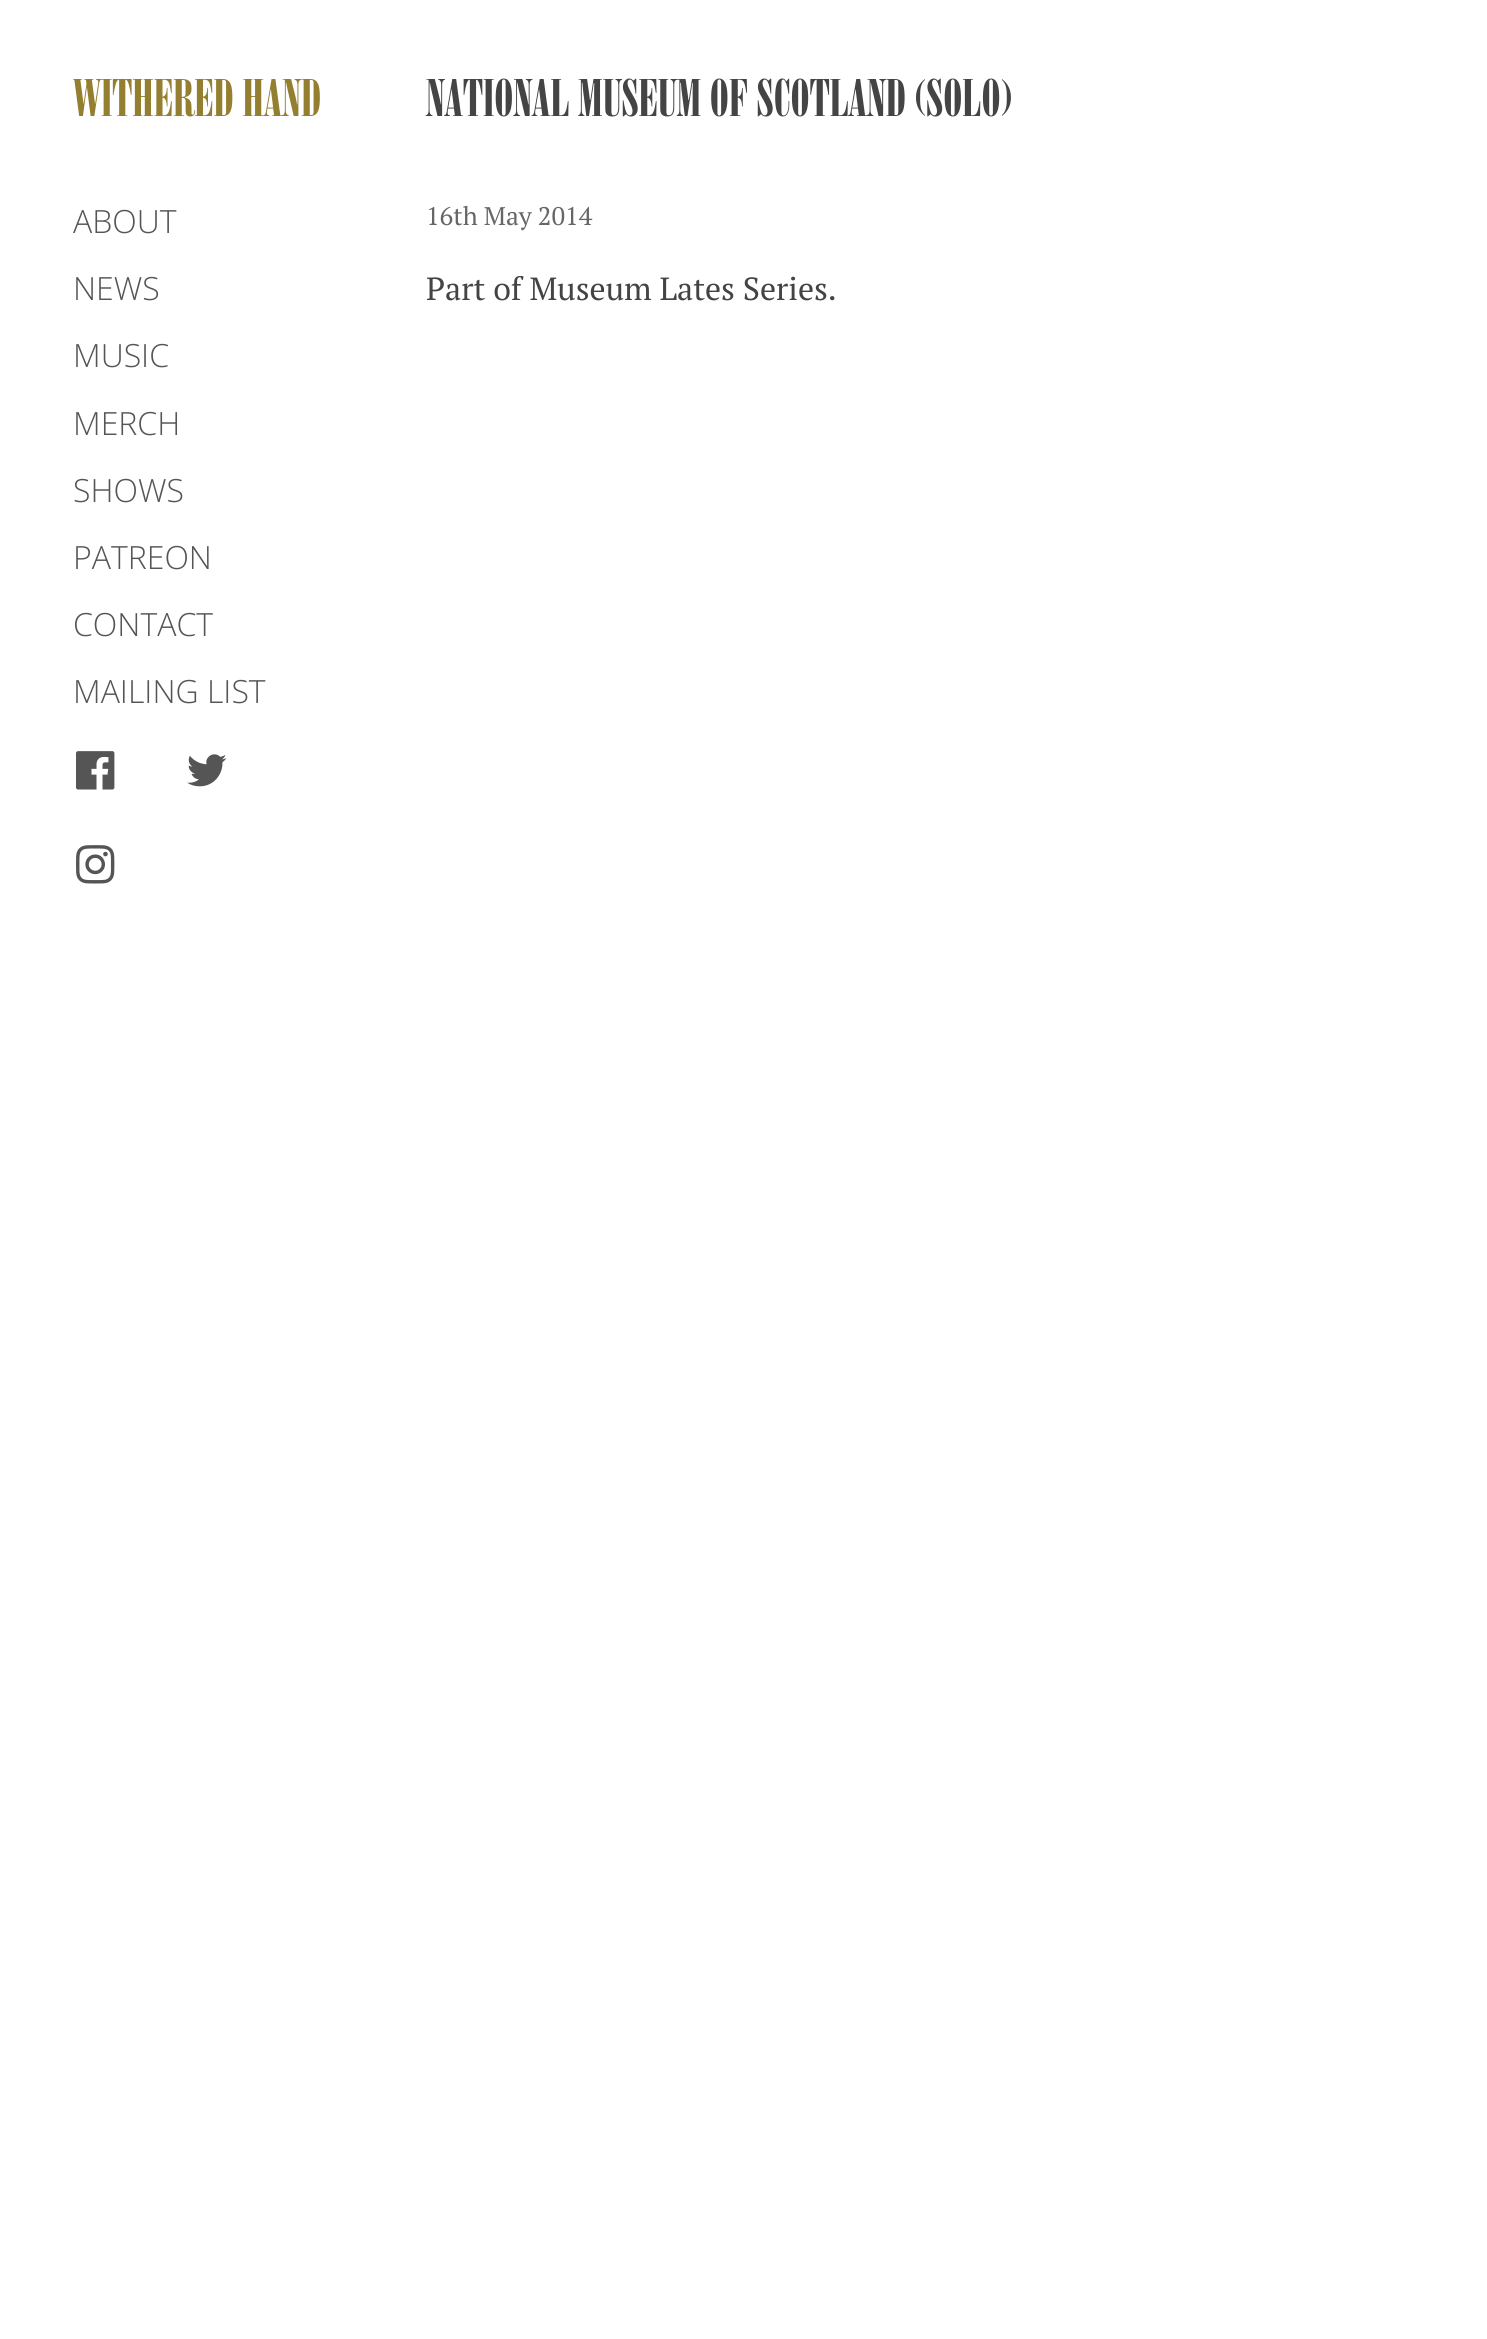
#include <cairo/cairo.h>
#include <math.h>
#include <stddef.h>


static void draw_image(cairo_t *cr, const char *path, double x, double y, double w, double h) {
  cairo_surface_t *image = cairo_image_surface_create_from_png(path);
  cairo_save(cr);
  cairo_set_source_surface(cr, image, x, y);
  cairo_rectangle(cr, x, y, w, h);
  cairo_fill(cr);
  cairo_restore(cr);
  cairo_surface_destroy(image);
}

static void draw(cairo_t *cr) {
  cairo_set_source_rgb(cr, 1, 1, 1);
  cairo_paint(cr);
  draw_image(cr, "images/1.png", 76, 751, 39, 39);
  draw_image(cr, "images/2.png", 187, 754, 40, 33);
  draw_image(cr, "images/3.png", 76, 845, 39, 39);
  cairo_select_font_face(cr, "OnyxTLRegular", CAIRO_FONT_SLANT_NORMAL, CAIRO_FONT_WEIGHT_NORMAL);
  cairo_set_font_size(cr, 51.25);
  cairo_set_source_rgb(cr, 148 / 255.0, 127 / 255.0, 48 / 255.0);
  cairo_move_to(cr, 73, 116);
  cairo_show_text(cr, "WITHERED HAND");
  cairo_select_font_face(cr, "Open Sans Light", CAIRO_FONT_SLANT_NORMAL, CAIRO_FONT_WEIGHT_NORMAL);
  cairo_set_font_size(cr, 32);
  cairo_set_source_rgb(cr, 85 / 255.0, 85 / 255.0, 85 / 255.0);
  cairo_move_to(cr, 73, 233);
  cairo_show_text(cr, "ABOUT");
  cairo_move_to(cr, 73, 300);
  cairo_show_text(cr, "NEWS");
  cairo_move_to(cr, 73, 367);
  cairo_show_text(cr, "MUSIC");
  cairo_move_to(cr, 73, 435);
  cairo_show_text(cr, "MERCH");
  cairo_move_to(cr, 73, 502);
  cairo_show_text(cr, "SHOWS");
  cairo_move_to(cr, 73, 569);
  cairo_show_text(cr, "PATREON");
  cairo_move_to(cr, 73, 636);
  cairo_show_text(cr, "CONTACT");
  cairo_move_to(cr, 73, 703);
  cairo_show_text(cr, "MAILING LIST");
  cairo_select_font_face(cr, "OnyxTLRegular", CAIRO_FONT_SLANT_NORMAL, CAIRO_FONT_WEIGHT_NORMAL);
  cairo_set_font_size(cr, 51.25);
  cairo_set_source_rgb(cr, 68 / 255.0, 68 / 255.0, 68 / 255.0);
  cairo_move_to(cr, 426, 116);
  cairo_show_text(cr, "NATIONAL MUSEUM OF SCOTLAND (SOLO)");
  cairo_select_font_face(cr, "PT Serif", CAIRO_FONT_SLANT_NORMAL, CAIRO_FONT_WEIGHT_NORMAL);
  cairo_set_font_size(cr, 25.5);
  cairo_set_source_rgb(cr, 102 / 255.0, 102 / 255.0, 102 / 255.0);
  cairo_move_to(cr, 426, 225);
  cairo_show_text(cr, "16th May 2014");
  cairo_set_font_size(cr, 32);
  cairo_set_source_rgb(cr, 68 / 255.0, 68 / 255.0, 68 / 255.0);
  cairo_move_to(cr, 426, 300);
  cairo_show_text(cr, "Part of Museum Lates Series.");
}

int main(void) {
  cairo_surface_t *surface = cairo_image_surface_create(CAIRO_FORMAT_RGB24, 1487, 2339);
  cairo_t *cr = cairo_create(surface);
  cairo_font_options_t *options = cairo_font_options_create();
  cairo_font_options_set_hint_metrics(options, CAIRO_HINT_METRICS_OFF);
  cairo_font_options_set_hint_style(options, CAIRO_HINT_STYLE_NONE);
  cairo_set_font_options(cr, options);
  cairo_set_miter_limit(cr, 4);
  draw(cr);
  cairo_surface_write_to_png(surface, "out.png");
  cairo_font_options_destroy(options);
  cairo_destroy(cr);
  cairo_surface_destroy(surface);
  return 0;
}
